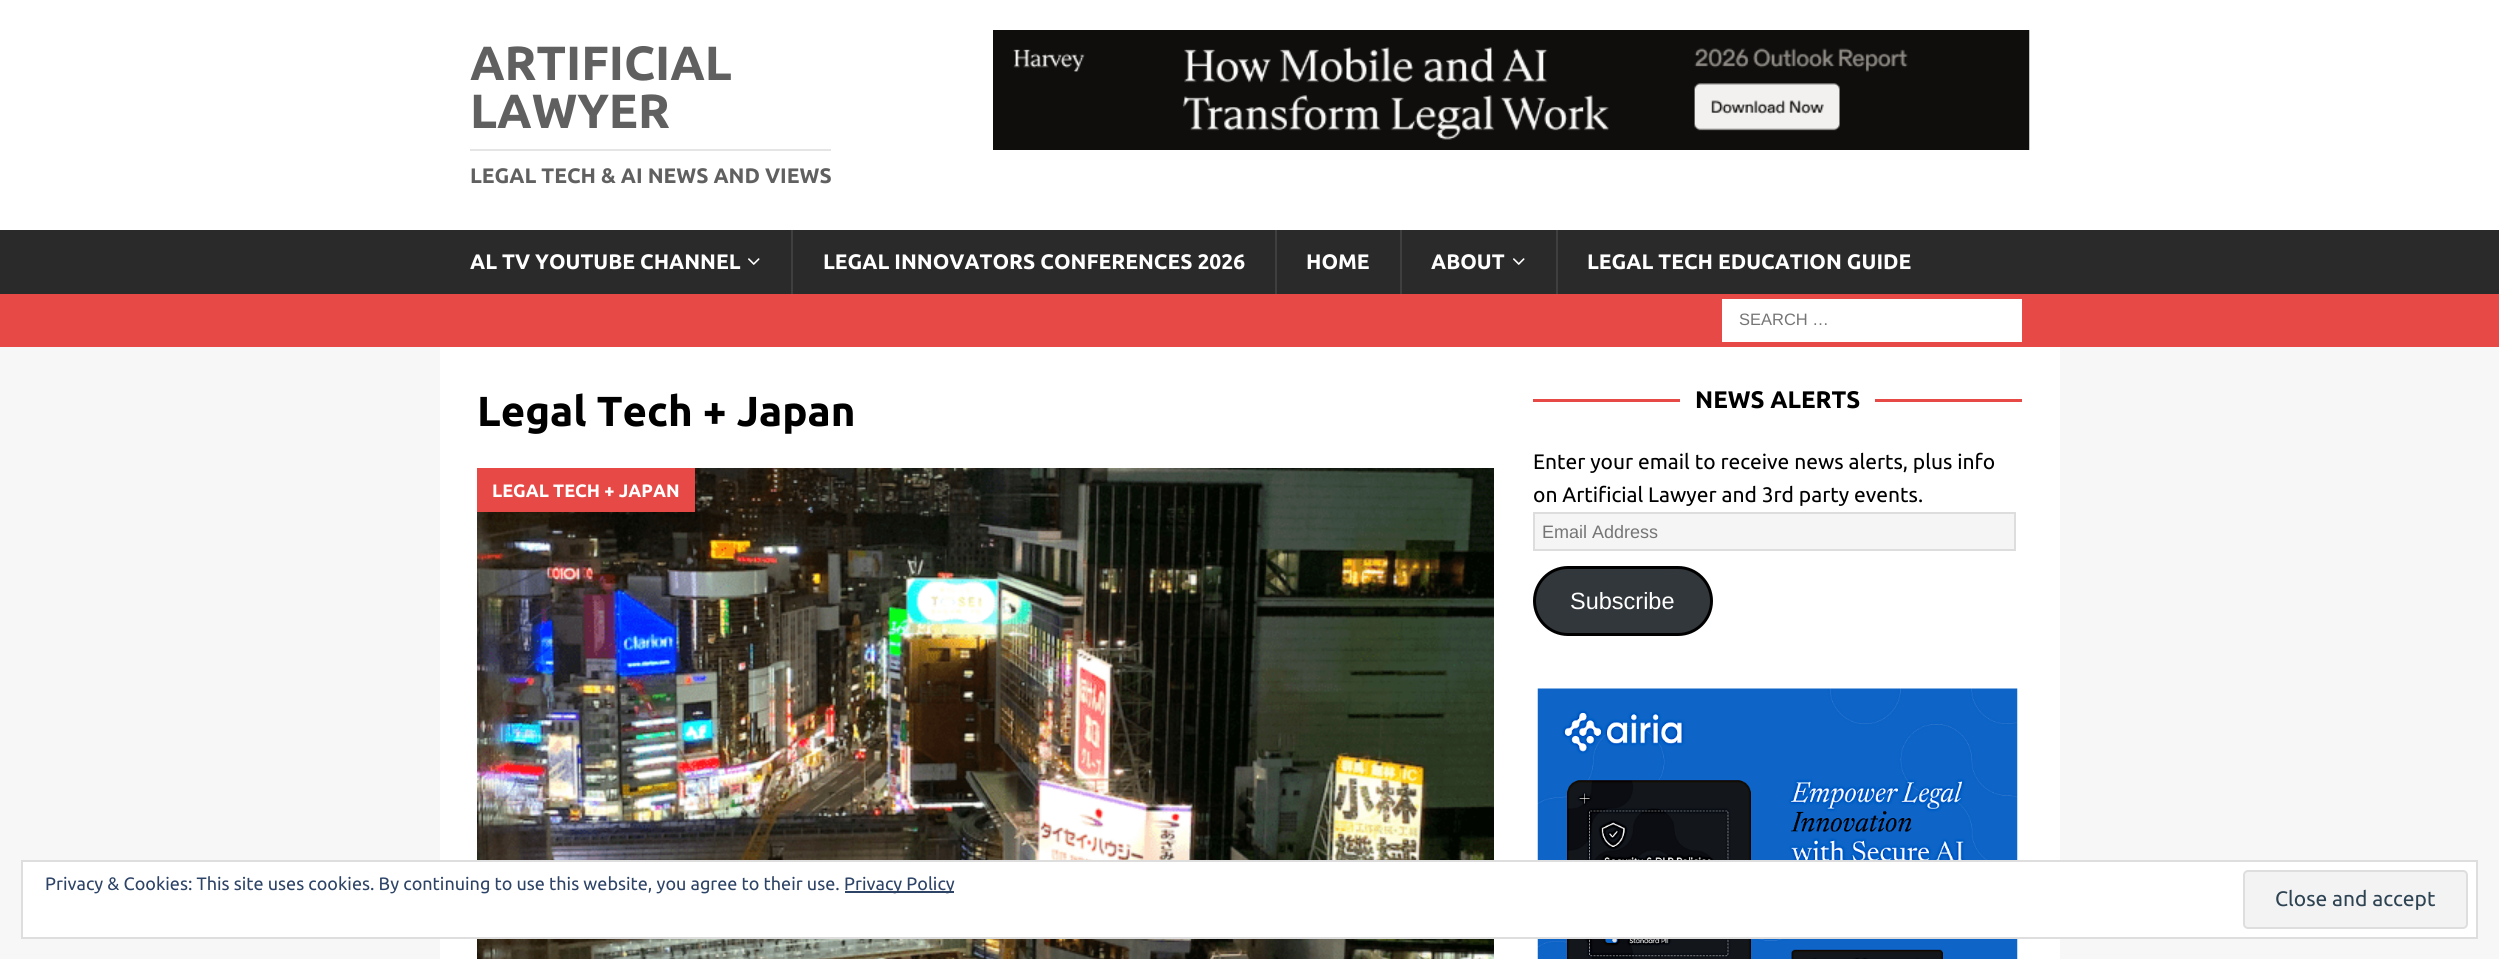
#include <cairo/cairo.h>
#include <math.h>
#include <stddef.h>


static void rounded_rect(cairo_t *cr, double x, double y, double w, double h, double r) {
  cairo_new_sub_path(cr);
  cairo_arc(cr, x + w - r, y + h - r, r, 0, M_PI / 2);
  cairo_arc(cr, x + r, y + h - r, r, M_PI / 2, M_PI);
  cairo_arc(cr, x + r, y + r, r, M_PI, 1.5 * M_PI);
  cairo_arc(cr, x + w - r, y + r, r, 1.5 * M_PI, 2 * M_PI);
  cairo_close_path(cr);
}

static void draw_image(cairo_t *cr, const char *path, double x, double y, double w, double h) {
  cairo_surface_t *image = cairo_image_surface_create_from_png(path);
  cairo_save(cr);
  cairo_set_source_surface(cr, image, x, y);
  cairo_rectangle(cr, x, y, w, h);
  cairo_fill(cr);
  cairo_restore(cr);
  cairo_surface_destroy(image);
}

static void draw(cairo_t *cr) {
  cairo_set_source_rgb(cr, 247 / 255.0, 247 / 255.0, 247 / 255.0);
  cairo_paint(cr);
  cairo_set_source_rgb(cr, 1, 1, 1);
  cairo_rectangle(cr, 0, 0, 2499, 230);
  cairo_fill(cr);
  cairo_set_source_rgb(cr, 229 / 255.0, 229 / 255.0, 229 / 255.0);
  cairo_rectangle(cr, 470, 149, 361, 2);
  cairo_fill(cr);
  draw_image(cr, "images/1.png", 993, 30, 1037, 120);
  cairo_set_source_rgb(cr, 42 / 255.0, 42 / 255.0, 42 / 255.0);
  cairo_rectangle(cr, 0, 230, 2499, 64);
  cairo_fill(cr);
  draw_image(cr, "images/2.png", 748, 258, 12, 7);
  cairo_set_source_rgb(cr, 63 / 255.0, 63 / 255.0, 63 / 255.0);
  cairo_rectangle(cr, 791, 230, 2, 64);
  cairo_fill(cr);
  cairo_rectangle(cr, 1275, 230, 2, 64);
  cairo_fill(cr);
  cairo_rectangle(cr, 1400, 230, 2, 64);
  cairo_fill(cr);
  draw_image(cr, "images/2.png", 1513, 258, 12, 7);
  cairo_rectangle(cr, 1556, 230, 2, 64);
  cairo_fill(cr);
  cairo_set_source_rgb(cr, 230 / 255.0, 73 / 255.0, 70 / 255.0);
  cairo_rectangle(cr, 0, 294, 2499, 53);
  cairo_fill(cr);
  cairo_set_source_rgb(cr, 1, 1, 1);
  cairo_rectangle(cr, 1722, 299, 300, 43);
  cairo_fill(cr);
  cairo_rectangle(cr, 440, 347, 1620, 612);
  cairo_fill(cr);
  draw_image(cr, "images/3.png", 477, 468, 1017, 491);
  cairo_set_source_rgb(cr, 230 / 255.0, 73 / 255.0, 70 / 255.0);
  cairo_rectangle(cr, 477, 468, 218, 44);
  cairo_fill(cr);
  cairo_rectangle(cr, 1533, 399, 489, 3);
  cairo_fill(cr);
  cairo_set_source_rgb(cr, 1, 1, 1);
  cairo_rectangle(cr, 1680, 399, 195, 3);
  cairo_fill(cr);
  cairo_set_source_rgb(cr, 245 / 255.0, 245 / 255.0, 245 / 255.0);
  cairo_rectangle(cr, 1534, 513, 481, 37);
  cairo_fill_preserve(cr);
  cairo_set_source_rgb(cr, 221 / 255.0, 221 / 255.0, 221 / 255.0);
  cairo_stroke(cr);
  cairo_set_source_rgb(cr, 50 / 255.0, 55 / 255.0, 60 / 255.0);
  rounded_rect(cr, 1534.5, 567.5, 177, 67, 33.5);
  cairo_fill_preserve(cr);
  cairo_set_source_rgb(cr, 0, 0, 0);
  cairo_set_line_width(cr, 3);
  cairo_stroke(cr);
  draw_image(cr, "images/4.png", 1537, 688, 481, 271);
  cairo_set_source_rgb(cr, 1, 1, 1);
  cairo_rectangle(cr, 22, 861, 2455, 77);
  cairo_fill_preserve(cr);
  cairo_set_source_rgb(cr, 222 / 255.0, 222 / 255.0, 222 / 255.0);
  cairo_set_line_width(cr, 2);
  cairo_stroke(cr);
  cairo_set_source_rgb(cr, 46 / 255.0, 68 / 255.0, 103 / 255.0);
  cairo_rectangle(cr, 845, 891, 109, 2);
  cairo_fill(cr);
  cairo_set_source_rgb(cr, 243 / 255.0, 243 / 255.0, 243 / 255.0);
  rounded_rect(cr, 2244, 871, 223, 57, 4);
  cairo_fill_preserve(cr);
  cairo_set_source_rgb(cr, 222 / 255.0, 222 / 255.0, 222 / 255.0);
  cairo_stroke(cr);
  cairo_select_font_face(cr, "Ubuntu", CAIRO_FONT_SLANT_NORMAL, CAIRO_FONT_WEIGHT_BOLD);
  cairo_set_font_size(cr, 48);
  cairo_set_source_rgb(cr, 96 / 255.0, 96 / 255.0, 96 / 255.0);
  cairo_move_to(cr, 470, 80);
  cairo_show_text(cr, "ARTIFICIAL");
  cairo_move_to(cr, 470, 128);
  cairo_show_text(cr, "LAWYER");
  cairo_set_font_size(cr, 21);
  cairo_move_to(cr, 470, 183);
  cairo_show_text(cr, "LEGAL TECH & AI NEWS AND VIEWS");
  cairo_set_source_rgb(cr, 1, 1, 1);
  cairo_move_to(cr, 470, 269);
  cairo_show_text(cr, "AL TV YOUTUBE CHANNEL");
  cairo_move_to(cr, 823, 269);
  cairo_show_text(cr, "LEGAL INNOVATORS CONFERENCES 2026");
  cairo_move_to(cr, 1306, 269);
  cairo_show_text(cr, "HOME");
  cairo_move_to(cr, 1431, 269);
  cairo_show_text(cr, "ABOUT");
  cairo_move_to(cr, 1587, 269);
  cairo_show_text(cr, "LEGAL TECH EDUCATION GUIDE");
  cairo_select_font_face(cr, "Liberation Sans", CAIRO_FONT_SLANT_NORMAL, CAIRO_FONT_WEIGHT_NORMAL);
  cairo_set_font_size(cr, 16.5);
  cairo_set_source_rgb(cr, 117 / 255.0, 117 / 255.0, 117 / 255.0);
  cairo_move_to(cr, 1739, 325);
  cairo_show_text(cr, "SEARCH …");
  cairo_select_font_face(cr, "Ubuntu", CAIRO_FONT_SLANT_NORMAL, CAIRO_FONT_WEIGHT_BOLD);
  cairo_set_font_size(cr, 42);
  cairo_set_source_rgb(cr, 0, 0, 0);
  cairo_move_to(cr, 477, 426);
  cairo_show_text(cr, "Legal Tech + Japan");
  cairo_set_font_size(cr, 18);
  cairo_set_source_rgb(cr, 1, 1, 1);
  cairo_move_to(cr, 492, 497);
  cairo_show_text(cr, "LEGAL TECH + JAPAN");
  cairo_set_font_size(cr, 24);
  cairo_set_source_rgb(cr, 0, 0, 0);
  cairo_move_to(cr, 1695, 408);
  cairo_show_text(cr, "NEWS ALERTS");
  cairo_select_font_face(cr, "Ubuntu", CAIRO_FONT_SLANT_NORMAL, CAIRO_FONT_WEIGHT_NORMAL);
  cairo_set_font_size(cr, 21);
  cairo_move_to(cr, 1533, 469);
  cairo_show_text(cr, "Enter your email to receive news alerts, plus info");
  cairo_move_to(cr, 1533, 502);
  cairo_show_text(cr, "on Artificial Lawyer and 3rd party events.");
  cairo_select_font_face(cr, "Liberation Sans", CAIRO_FONT_SLANT_NORMAL, CAIRO_FONT_WEIGHT_NORMAL);
  cairo_set_font_size(cr, 18);
  cairo_set_source_rgb(cr, 117 / 255.0, 117 / 255.0, 117 / 255.0);
  cairo_move_to(cr, 1542, 538);
  cairo_show_text(cr, "Email Address");
  cairo_set_font_size(cr, 23.5);
  cairo_set_source_rgb(cr, 1, 1, 1);
  cairo_move_to(cr, 1570, 609);
  cairo_show_text(cr, "Subscribe");
  cairo_select_font_face(cr, "Ubuntu", CAIRO_FONT_SLANT_NORMAL, CAIRO_FONT_WEIGHT_NORMAL);
  cairo_set_font_size(cr, 18);
  cairo_set_source_rgb(cr, 46 / 255.0, 68 / 255.0, 103 / 255.0);
  cairo_move_to(cr, 45, 890);
  cairo_show_text(cr, "Privacy & Cookies: This site uses cookies. By continuing to use this website, you agree to their use.");
  cairo_move_to(cr, 844, 890);
  cairo_show_text(cr, "Privacy Policy");
  cairo_set_font_size(cr, 21);
  cairo_set_source_rgb(cr, 46 / 255.0, 68 / 255.0, 83 / 255.0);
  cairo_move_to(cr, 2275, 906);
  cairo_show_text(cr, "Close and accept");
}

int main(void) {
  cairo_surface_t *surface = cairo_image_surface_create(CAIRO_FORMAT_RGB24, 2499, 959);
  cairo_t *cr = cairo_create(surface);
  cairo_font_options_t *options = cairo_font_options_create();
  cairo_font_options_set_hint_metrics(options, CAIRO_HINT_METRICS_OFF);
  cairo_font_options_set_hint_style(options, CAIRO_HINT_STYLE_NONE);
  cairo_set_font_options(cr, options);
  cairo_set_miter_limit(cr, 4);
  draw(cr);
  cairo_surface_write_to_png(surface, "out.png");
  cairo_font_options_destroy(options);
  cairo_destroy(cr);
  cairo_surface_destroy(surface);
  return 0;
}
